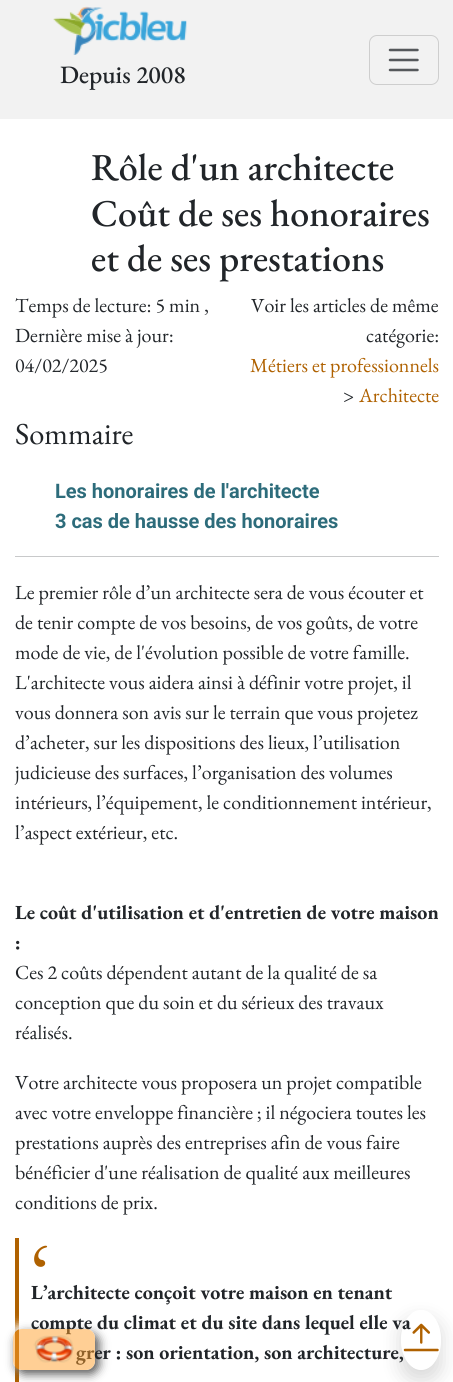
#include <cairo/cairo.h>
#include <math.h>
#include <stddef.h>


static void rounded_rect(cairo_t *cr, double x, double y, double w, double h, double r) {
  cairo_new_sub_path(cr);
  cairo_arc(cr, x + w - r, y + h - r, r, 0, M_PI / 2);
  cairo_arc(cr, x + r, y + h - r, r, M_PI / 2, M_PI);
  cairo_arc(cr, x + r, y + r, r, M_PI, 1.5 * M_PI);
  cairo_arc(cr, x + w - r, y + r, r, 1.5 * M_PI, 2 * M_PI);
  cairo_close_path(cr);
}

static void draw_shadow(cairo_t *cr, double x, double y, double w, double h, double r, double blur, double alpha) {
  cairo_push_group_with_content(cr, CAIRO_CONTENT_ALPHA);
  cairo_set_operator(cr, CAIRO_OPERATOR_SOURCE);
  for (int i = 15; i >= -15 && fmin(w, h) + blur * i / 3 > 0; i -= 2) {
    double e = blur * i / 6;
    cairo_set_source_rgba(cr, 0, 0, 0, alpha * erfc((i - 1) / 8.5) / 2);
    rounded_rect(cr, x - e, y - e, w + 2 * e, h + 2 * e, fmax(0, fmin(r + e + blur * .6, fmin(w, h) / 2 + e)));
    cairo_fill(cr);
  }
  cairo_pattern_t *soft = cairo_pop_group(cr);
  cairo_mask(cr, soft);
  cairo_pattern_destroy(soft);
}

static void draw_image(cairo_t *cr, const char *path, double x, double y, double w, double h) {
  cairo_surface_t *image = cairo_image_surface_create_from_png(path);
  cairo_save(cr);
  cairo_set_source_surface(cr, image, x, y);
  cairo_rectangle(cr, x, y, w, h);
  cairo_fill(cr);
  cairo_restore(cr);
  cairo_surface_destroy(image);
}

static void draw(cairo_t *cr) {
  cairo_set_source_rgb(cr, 1, 1, 1);
  cairo_paint(cr);
  cairo_set_source_rgb(cr, 242 / 255.0, 242 / 255.0, 242 / 255.0);
  cairo_rectangle(cr, 0, 0, 453, 119);
  cairo_fill(cr);
  draw_image(cr, "images/1.png", 53, 6, 134, 49);
  rounded_rect(cr, 369.5, 35.5, 69, 49, 7.5);
  cairo_set_source_rgb(cr, 206 / 255.0, 206 / 255.0, 206 / 255.0);
  cairo_set_line_width(cr, 1);
  cairo_stroke(cr);
  cairo_new_path(cr);
  cairo_move_to(cr, 390, 50);
  cairo_line_to(cr, 417.5, 50);
  cairo_move_to(cr, 390, 60);
  cairo_line_to(cr, 417.5, 60);
  cairo_move_to(cr, 390, 70);
  cairo_line_to(cr, 417.5, 70);
  cairo_set_source_rgb(cr, 85 / 255.0, 88 / 255.0, 91 / 255.0);
  cairo_set_line_width(cr, 2.5);
  cairo_set_line_cap(cr, CAIRO_LINE_CAP_ROUND);
  cairo_stroke(cr);
  cairo_set_source_rgb(cr, 200 / 255.0, 201 / 255.0, 202 / 255.0);
  cairo_rectangle(cr, 15, 556, 424, 1);
  cairo_fill(cr);
  cairo_set_source_rgb(cr, 175 / 255.0, 97 / 255.0, 0);
  cairo_rectangle(cr, 15, 1238, 4, 144);
  cairo_fill(cr);
  cairo_save(cr);
  cairo_set_fill_rule(cr, CAIRO_FILL_RULE_EVEN_ODD);
  cairo_new_path(cr);
  cairo_move_to(cr, 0, 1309);
  cairo_line_to(cr, 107, 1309);
  cairo_line_to(cr, 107, 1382);
  cairo_line_to(cr, 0, 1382);
  cairo_close_path(cr);
  cairo_move_to(cr, 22, 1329);
  cairo_line_to(cr, 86, 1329);
  cairo_curve_to(cr, 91, 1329, 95, 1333, 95, 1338);
  cairo_line_to(cr, 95, 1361);
  cairo_curve_to(cr, 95, 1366, 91, 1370, 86, 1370);
  cairo_line_to(cr, 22, 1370);
  cairo_curve_to(cr, 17, 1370, 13, 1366, 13, 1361);
  cairo_line_to(cr, 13, 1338);
  cairo_curve_to(cr, 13, 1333, 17, 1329, 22, 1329);
  cairo_close_path(cr);
  cairo_clip(cr);
  cairo_set_source_rgb(cr, 1, 1, 1);
  draw_shadow(cr, 9, 1325, 82, 41, 9, 5, 1);
  cairo_restore(cr);
  cairo_save(cr);
  cairo_set_fill_rule(cr, CAIRO_FILL_RULE_EVEN_ODD);
  cairo_new_path(cr);
  cairo_move_to(cr, 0, 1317);
  cairo_line_to(cr, 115, 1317);
  cairo_line_to(cr, 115, 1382);
  cairo_line_to(cr, 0, 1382);
  cairo_close_path(cr);
  cairo_move_to(cr, 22, 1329);
  cairo_line_to(cr, 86, 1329);
  cairo_curve_to(cr, 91, 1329, 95, 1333, 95, 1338);
  cairo_line_to(cr, 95, 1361);
  cairo_curve_to(cr, 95, 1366, 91, 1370, 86, 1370);
  cairo_line_to(cr, 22, 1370);
  cairo_curve_to(cr, 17, 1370, 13, 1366, 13, 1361);
  cairo_line_to(cr, 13, 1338);
  cairo_curve_to(cr, 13, 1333, 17, 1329, 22, 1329);
  cairo_close_path(cr);
  cairo_clip(cr);
  cairo_set_source_rgb(cr, 85 / 255.0, 85 / 255.0, 85 / 255.0);
  draw_shadow(cr, 16, 1333, 83, 41, 9, 5, 1);
  cairo_restore(cr);
  cairo_save(cr);
  cairo_set_fill_rule(cr, CAIRO_FILL_RULE_EVEN_ODD);
  cairo_new_path(cr);
  cairo_move_to(cr, 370, 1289);
  cairo_line_to(cr, 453, 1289);
  cairo_line_to(cr, 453, 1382);
  cairo_line_to(cr, 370, 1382);
  cairo_close_path(cr);
  cairo_move_to(cr, 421, 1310);
  cairo_curve_to(cr, 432.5, 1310, 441, 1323.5, 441, 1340);
  cairo_curve_to(cr, 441, 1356.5, 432.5, 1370, 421, 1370);
  cairo_curve_to(cr, 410, 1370, 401, 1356.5, 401, 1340);
  cairo_curve_to(cr, 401, 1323.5, 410, 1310, 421, 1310);
  cairo_close_path(cr);
  cairo_clip(cr);
  cairo_set_source_rgb(cr, 0, 0, 0);
  draw_shadow(cr, 401, 1320, 40, 60, 20, 10, 0.15);
  cairo_restore(cr);
  cairo_select_font_face(cr, "EB Garamond Medium", CAIRO_FONT_SLANT_NORMAL, CAIRO_FONT_WEIGHT_NORMAL);
  cairo_set_font_size(cr, 25);
  cairo_set_source_rgb(cr, 33 / 255.0, 37 / 255.0, 41 / 255.0);
  cairo_move_to(cr, 60, 83);
  cairo_show_text(cr, "Depuis 2008");
  cairo_set_font_size(cr, 38);
  cairo_move_to(cr, 91, 180);
  cairo_show_text(cr, "Rôle d'un architecte");
  cairo_move_to(cr, 91, 226);
  cairo_show_text(cr, "Coût de ses honoraires");
  cairo_move_to(cr, 91, 271);
  cairo_show_text(cr, "et de ses prestations");
  cairo_select_font_face(cr, "EB Garamond", CAIRO_FONT_SLANT_NORMAL, CAIRO_FONT_WEIGHT_NORMAL);
  cairo_set_font_size(cr, 20);
  cairo_move_to(cr, 15, 312);
  cairo_show_text(cr, "Temps de lecture: 5 min ,");
  cairo_move_to(cr, 15, 342);
  cairo_show_text(cr, "Dernière mise à jour:");
  cairo_move_to(cr, 15, 372);
  cairo_show_text(cr, "04/02/2025");
  cairo_move_to(cr, 251, 312);
  cairo_show_text(cr, "Voir les articles de même");
  cairo_move_to(cr, 366, 342);
  cairo_show_text(cr, "catégorie:");
  cairo_set_source_rgb(cr, 175 / 255.0, 97 / 255.0, 0);
  cairo_move_to(cr, 250, 372);
  cairo_show_text(cr, "Métiers et professionnels");
  cairo_set_source_rgb(cr, 33 / 255.0, 37 / 255.0, 41 / 255.0);
  cairo_move_to(cr, 343, 402);
  cairo_show_text(cr, ">");
  cairo_set_source_rgb(cr, 175 / 255.0, 97 / 255.0, 0);
  cairo_move_to(cr, 359, 402);
  cairo_show_text(cr, "Architecte");
  cairo_set_font_size(cr, 30.5);
  cairo_set_source_rgb(cr, 33 / 255.0, 37 / 255.0, 41 / 255.0);
  cairo_move_to(cr, 15, 444);
  cairo_show_text(cr, "Sommaire");
  cairo_select_font_face(cr, "Roboto", CAIRO_FONT_SLANT_NORMAL, CAIRO_FONT_WEIGHT_BOLD);
  cairo_set_font_size(cr, 20);
  cairo_set_source_rgb(cr, 45 / 255.0, 108 / 255.0, 123 / 255.0);
  cairo_move_to(cr, 55, 498);
  cairo_show_text(cr, "Les honoraires de l'architecte");
  cairo_move_to(cr, 55, 528);
  cairo_show_text(cr, "3 cas de hausse des honoraires");
  cairo_select_font_face(cr, "EB Garamond", CAIRO_FONT_SLANT_NORMAL, CAIRO_FONT_WEIGHT_NORMAL);
  cairo_set_source_rgb(cr, 33 / 255.0, 37 / 255.0, 41 / 255.0);
  cairo_move_to(cr, 15, 599);
  cairo_show_text(cr, "Le premier rôle d’un architecte sera de vous écouter et");
  cairo_move_to(cr, 15, 629);
  cairo_show_text(cr, "de tenir compte de vos besoins, de vos goûts, de votre");
  cairo_move_to(cr, 15, 659);
  cairo_show_text(cr, "mode de vie, de l'évolution possible de votre famille.");
  cairo_move_to(cr, 15, 689);
  cairo_show_text(cr, "L'architecte vous aidera ainsi à définir votre projet, il");
  cairo_move_to(cr, 15, 719);
  cairo_show_text(cr, "vous donnera son avis sur le terrain que vous projetez");
  cairo_move_to(cr, 15, 749);
  cairo_show_text(cr, "d’acheter, sur les dispositions des lieux, l’utilisation");
  cairo_move_to(cr, 15, 779);
  cairo_show_text(cr, "judicieuse des surfaces, l’organisation des volumes");
  cairo_move_to(cr, 15, 809);
  cairo_show_text(cr, "intérieurs, l’équipement, le conditionnement intérieur,");
  cairo_move_to(cr, 15, 839);
  cairo_show_text(cr, "l’aspect extérieur, etc.");
  cairo_select_font_face(cr, "EB Garamond", CAIRO_FONT_SLANT_NORMAL, CAIRO_FONT_WEIGHT_BOLD);
  cairo_move_to(cr, 15, 919);
  cairo_show_text(cr, "Le coût d'utilisation et d'entretien de votre maison");
  cairo_move_to(cr, 15, 949);
  cairo_show_text(cr, ":");
  cairo_select_font_face(cr, "EB Garamond", CAIRO_FONT_SLANT_NORMAL, CAIRO_FONT_WEIGHT_NORMAL);
  cairo_move_to(cr, 15, 979);
  cairo_show_text(cr, "Ces 2 coûts dépendent autant de la qualité de sa");
  cairo_move_to(cr, 15, 1009);
  cairo_show_text(cr, "conception que du soin et du sérieux des travaux");
  cairo_move_to(cr, 15, 1039);
  cairo_show_text(cr, "réalisés.");
  cairo_move_to(cr, 15, 1089);
  cairo_show_text(cr, "Votre architecte vous proposera un projet compatible");
  cairo_move_to(cr, 15, 1119);
  cairo_show_text(cr, "avec votre enveloppe financière ; il négociera toutes les");
  cairo_move_to(cr, 15, 1149);
  cairo_show_text(cr, "prestations auprès des entreprises afin de vous faire");
  cairo_move_to(cr, 15, 1179);
  cairo_show_text(cr, "bénéficier d'une réalisation de qualité aux meilleures");
  cairo_move_to(cr, 15, 1209);
  cairo_show_text(cr, "conditions de prix.");
  cairo_set_font_size(cr, 80);
  cairo_set_source_rgb(cr, 175 / 255.0, 97 / 255.0, 0);
  cairo_move_to(cr, 31, 1301);
  cairo_show_text(cr, "‘");
  cairo_select_font_face(cr, "EB Garamond", CAIRO_FONT_SLANT_NORMAL, CAIRO_FONT_WEIGHT_BOLD);
  cairo_set_font_size(cr, 20);
  cairo_set_source_rgb(cr, 33 / 255.0, 37 / 255.0, 41 / 255.0);
  cairo_move_to(cr, 31, 1299);
  cairo_show_text(cr, "L’architecte conçoit votre maison en tenant");
  cairo_move_to(cr, 31, 1329);
  cairo_show_text(cr, "compte du climat et du site dans lequel elle va");
  cairo_move_to(cr, 76, 1359);
  cairo_show_text(cr, "grer : son orientation, son architecture,");
  cairo_set_source_rgba(cr, 1, 161 / 255.0, 45 / 255.0, 0.5);
  rounded_rect(cr, 13, 1329, 82, 41, 9);
  cairo_fill(cr);
  draw_image(cr, "images/2.png", 33, 1335, 41, 28);
  draw_image(cr, "images/3.png", 403, 1323, 36, 29);
}

int main(void) {
  cairo_surface_t *surface = cairo_image_surface_create(CAIRO_FORMAT_RGB24, 453, 1382);
  cairo_t *cr = cairo_create(surface);
  cairo_font_options_t *options = cairo_font_options_create();
  cairo_font_options_set_hint_metrics(options, CAIRO_HINT_METRICS_OFF);
  cairo_font_options_set_hint_style(options, CAIRO_HINT_STYLE_NONE);
  cairo_set_font_options(cr, options);
  cairo_set_miter_limit(cr, 4);
  draw(cr);
  cairo_surface_write_to_png(surface, "out.png");
  cairo_font_options_destroy(options);
  cairo_destroy(cr);
  cairo_surface_destroy(surface);
  return 0;
}
